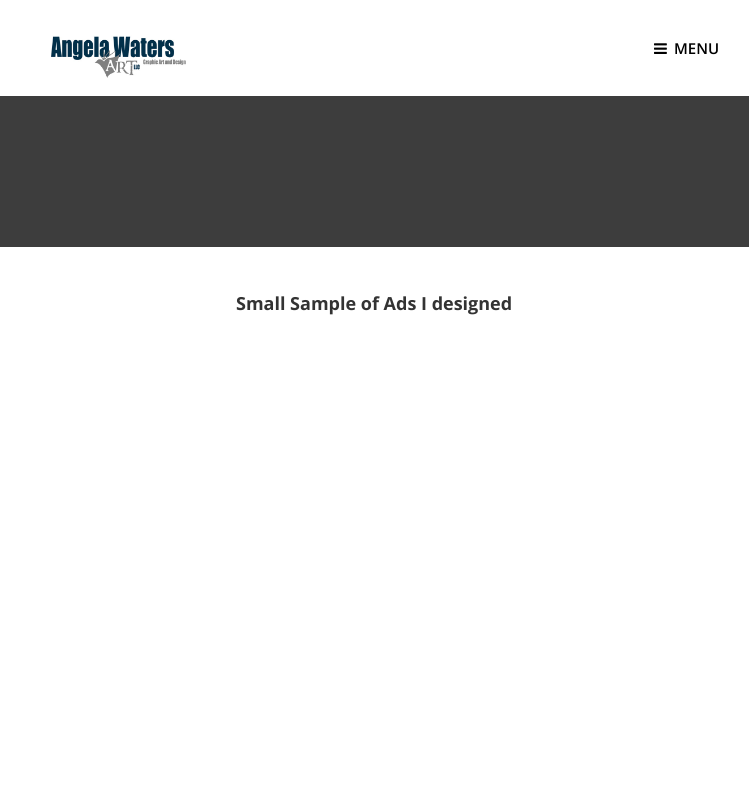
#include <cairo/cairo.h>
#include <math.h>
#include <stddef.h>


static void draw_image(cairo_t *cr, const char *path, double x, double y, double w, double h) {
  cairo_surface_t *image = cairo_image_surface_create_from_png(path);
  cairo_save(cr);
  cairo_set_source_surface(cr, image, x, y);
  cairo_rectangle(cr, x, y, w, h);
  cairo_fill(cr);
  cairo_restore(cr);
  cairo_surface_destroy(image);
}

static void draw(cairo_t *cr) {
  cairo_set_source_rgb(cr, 1, 1, 1);
  cairo_paint(cr);
  draw_image(cr, "images/1.png", 51, 35, 135, 43);
  draw_image(cr, "images/2.png", 654, 43, 13, 11);
  cairo_set_source_rgb(cr, 61 / 255.0, 61 / 255.0, 61 / 255.0);
  cairo_rectangle(cr, 0, 96, 749, 151);
  cairo_fill(cr);
  cairo_select_font_face(cr, "Open Sans SemiBold", CAIRO_FONT_SLANT_NORMAL, CAIRO_FONT_WEIGHT_NORMAL);
  cairo_set_font_size(cr, 15);
  cairo_set_source_rgb(cr, 0, 0, 0);
  cairo_move_to(cr, 674, 54);
  cairo_show_text(cr, "MENU");
  cairo_select_font_face(cr, "Open Sans", CAIRO_FONT_SLANT_NORMAL, CAIRO_FONT_WEIGHT_BOLD);
  cairo_set_font_size(cr, 18);
  cairo_set_source_rgb(cr, 51 / 255.0, 51 / 255.0, 51 / 255.0);
  cairo_move_to(cr, 236, 310);
  cairo_show_text(cr, "Small Sample of Ads I designed");
}

int main(void) {
  cairo_surface_t *surface = cairo_image_surface_create(CAIRO_FORMAT_RGB24, 749, 796);
  cairo_t *cr = cairo_create(surface);
  cairo_font_options_t *options = cairo_font_options_create();
  cairo_font_options_set_hint_metrics(options, CAIRO_HINT_METRICS_OFF);
  cairo_font_options_set_hint_style(options, CAIRO_HINT_STYLE_NONE);
  cairo_set_font_options(cr, options);
  cairo_set_miter_limit(cr, 4);
  draw(cr);
  cairo_surface_write_to_png(surface, "out.png");
  cairo_font_options_destroy(options);
  cairo_destroy(cr);
  cairo_surface_destroy(surface);
  return 0;
}
